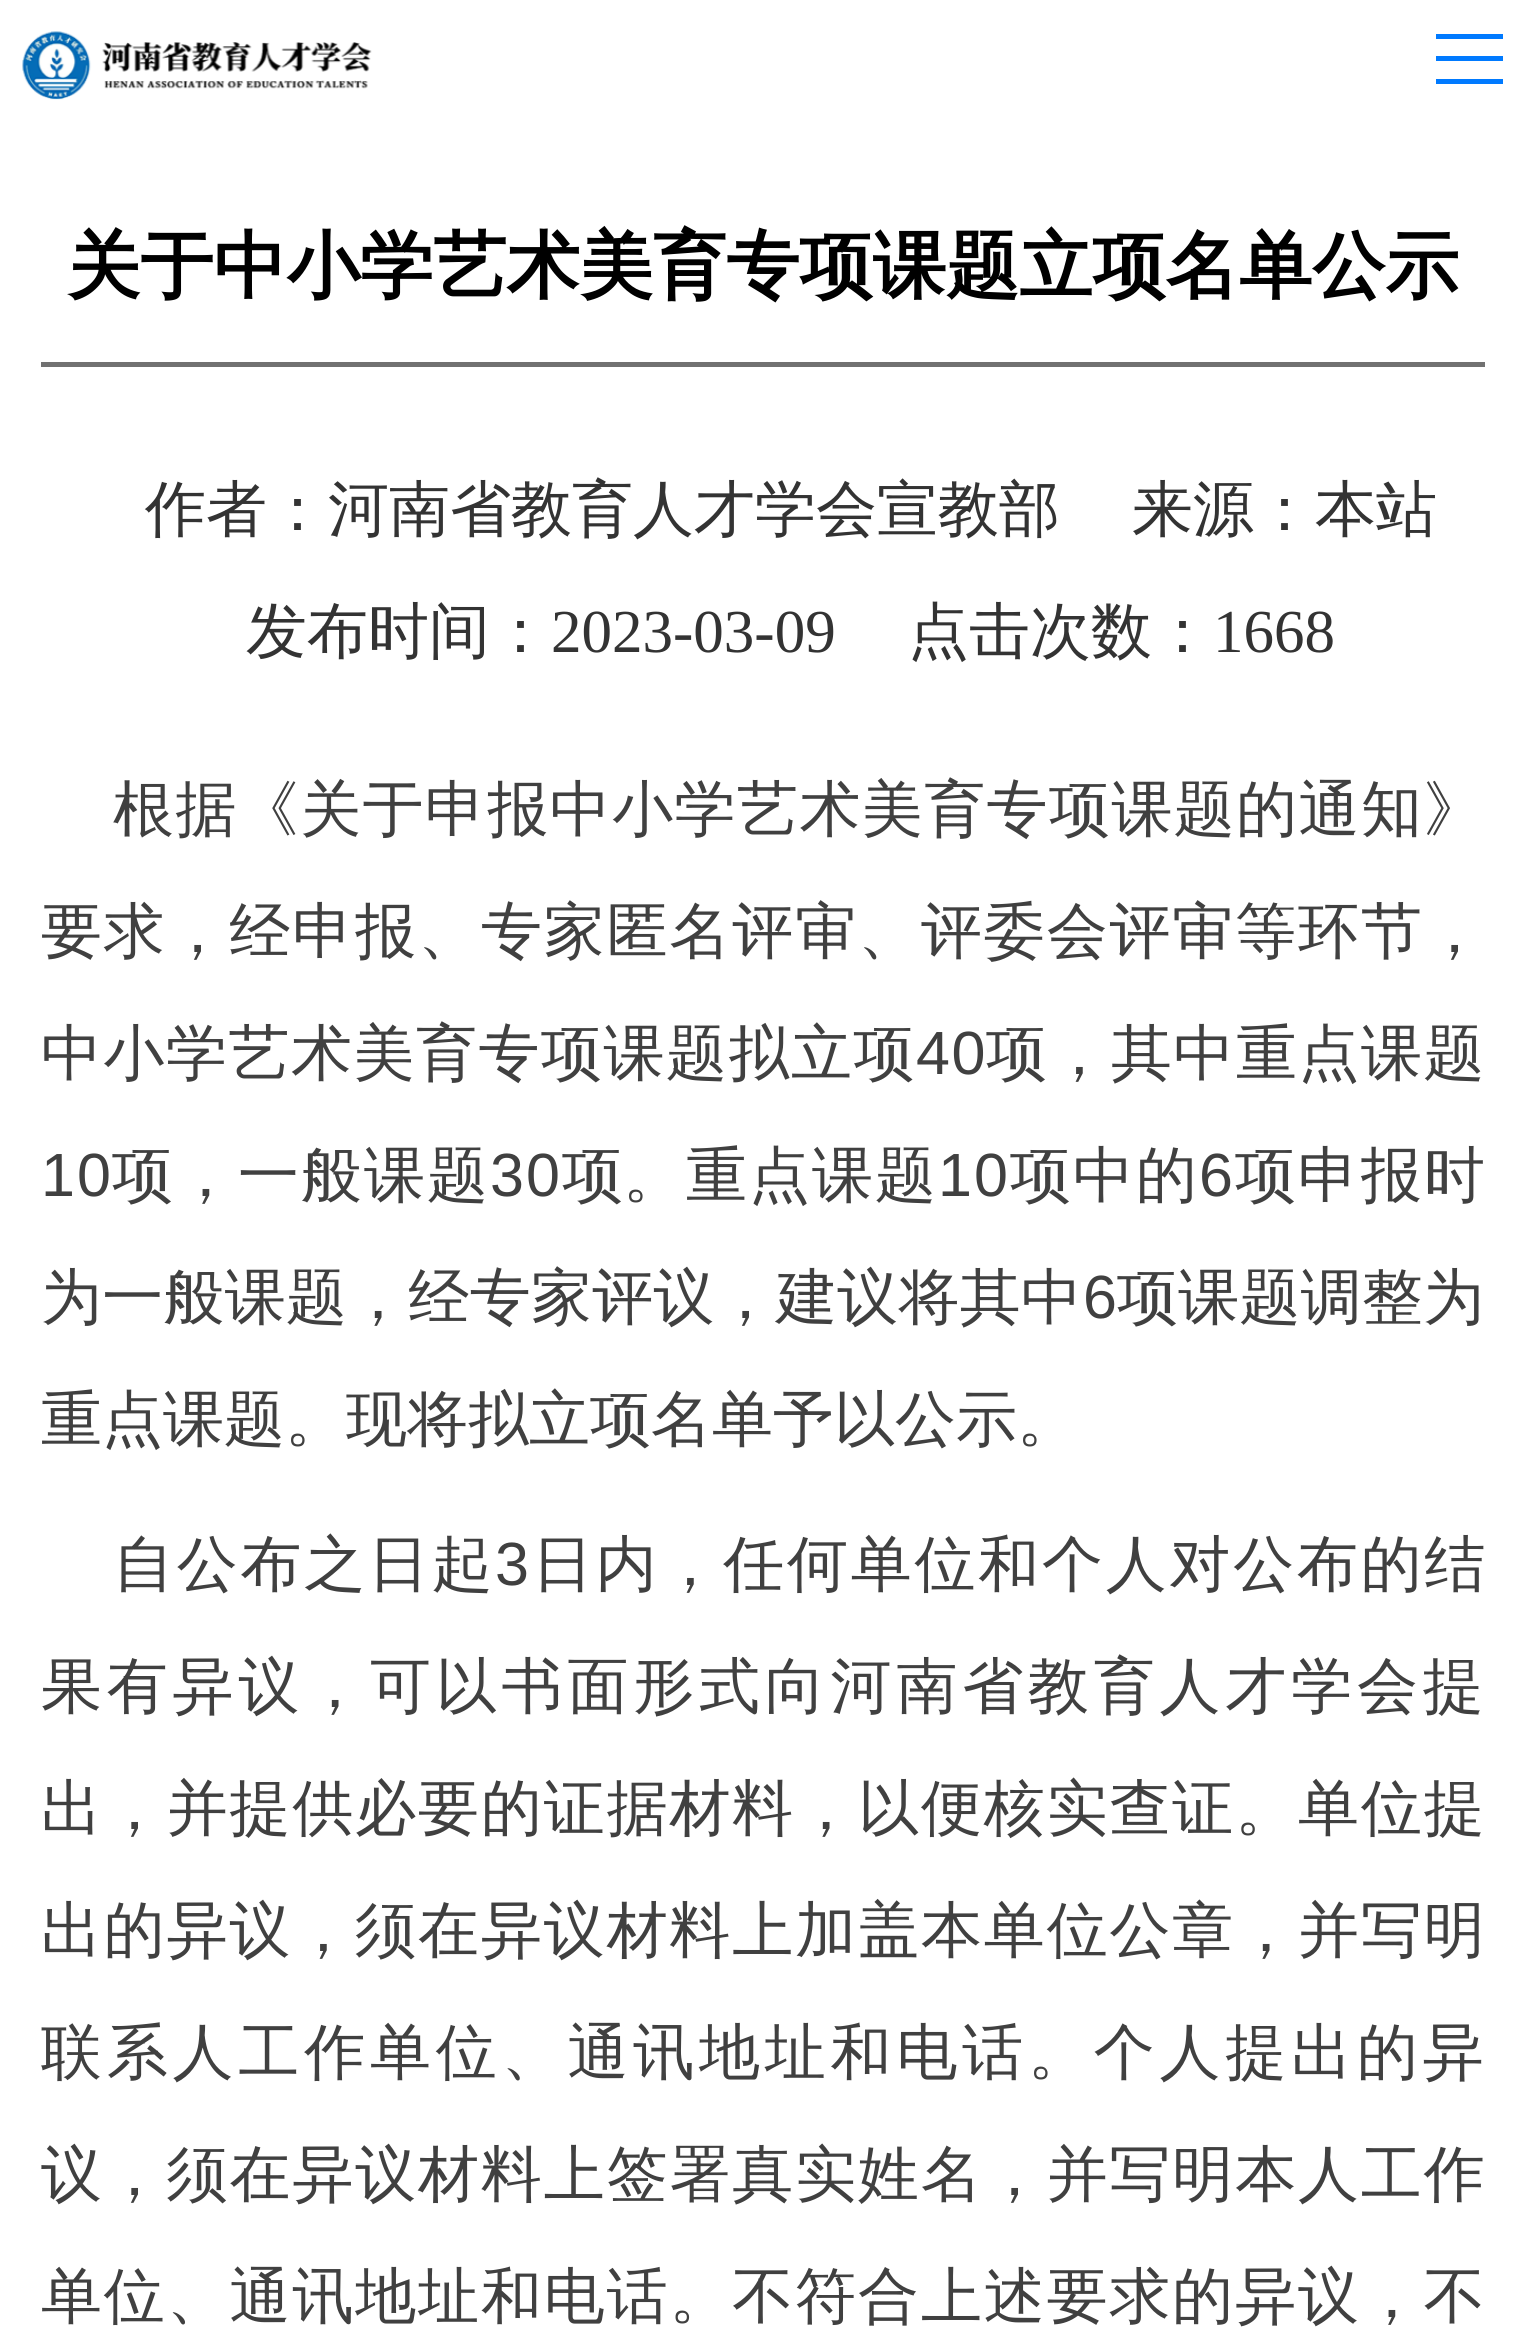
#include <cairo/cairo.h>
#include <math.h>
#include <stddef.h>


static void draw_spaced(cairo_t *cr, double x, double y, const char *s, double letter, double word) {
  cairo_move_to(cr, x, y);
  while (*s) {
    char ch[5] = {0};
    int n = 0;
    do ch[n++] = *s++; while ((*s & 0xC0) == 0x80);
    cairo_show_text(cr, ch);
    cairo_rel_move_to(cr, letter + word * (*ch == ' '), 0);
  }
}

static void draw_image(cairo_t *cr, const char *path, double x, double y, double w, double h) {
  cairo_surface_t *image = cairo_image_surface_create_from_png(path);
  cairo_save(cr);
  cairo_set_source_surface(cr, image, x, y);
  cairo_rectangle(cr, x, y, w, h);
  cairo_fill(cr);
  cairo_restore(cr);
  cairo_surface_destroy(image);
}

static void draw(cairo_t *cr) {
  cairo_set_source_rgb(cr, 1, 1, 1);
  cairo_paint(cr);
  draw_image(cr, "images/1.png", 22, 31, 350, 69);
  cairo_set_source_rgb(cr, 0, 122 / 255.0, 1);
  cairo_rectangle(cr, 1436, 34, 67, 5);
  cairo_fill(cr);
  cairo_rectangle(cr, 1436, 56, 67, 5);
  cairo_fill(cr);
  cairo_rectangle(cr, 1436, 79, 67, 5);
  cairo_fill(cr);
  cairo_set_source_rgb(cr, 113 / 255.0, 113 / 255.0, 113 / 255.0);
  cairo_rectangle(cr, 41, 362, 1444, 5);
  cairo_fill(cr);
  cairo_select_font_face(cr, "WenQuanYi Zen Hei", CAIRO_FONT_SLANT_NORMAL, CAIRO_FONT_WEIGHT_BOLD);
  cairo_set_font_size(cr, 73.25);
  cairo_set_source_rgb(cr, 0, 0, 0);
  cairo_move_to(cr, 67, 291);
  cairo_show_text(cr, "关于中小学艺术美育专项课题立项名单公示");
  cairo_select_font_face(cr, "WenQuanYi Zen Hei Medium", CAIRO_FONT_SLANT_NORMAL, CAIRO_FONT_WEIGHT_NORMAL);
  cairo_set_font_size(cr, 61);
  cairo_set_source_rgb(cr, 51 / 255.0, 51 / 255.0, 51 / 255.0);
  cairo_move_to(cr, 145, 530);
  cairo_show_text(cr, "作者：河南省教育人才学会宣教部");
  cairo_move_to(cr, 1132, 530);
  cairo_show_text(cr, "来源：本站");
  cairo_move_to(cr, 246, 652);
  cairo_show_text(cr, "发布时间：");
  cairo_select_font_face(cr, "Liberation Serif", CAIRO_FONT_SLANT_NORMAL, CAIRO_FONT_WEIGHT_NORMAL);
  cairo_move_to(cr, 551, 652);
  cairo_show_text(cr, "2023-03-09");
  cairo_select_font_face(cr, "WenQuanYi Zen Hei Medium", CAIRO_FONT_SLANT_NORMAL, CAIRO_FONT_WEIGHT_NORMAL);
  cairo_move_to(cr, 908, 652);
  cairo_show_text(cr, "点击次数：");
  cairo_select_font_face(cr, "Liberation Serif", CAIRO_FONT_SLANT_NORMAL, CAIRO_FONT_WEIGHT_NORMAL);
  cairo_move_to(cr, 1213, 652);
  cairo_show_text(cr, "1668");
  cairo_select_font_face(cr, "WenQuanYi Zen Hei Medium", CAIRO_FONT_SLANT_NORMAL, CAIRO_FONT_WEIGHT_NORMAL);
  cairo_set_source_rgb(cr, 64 / 255.0, 64 / 255.0, 64 / 255.0);
  draw_spaced(cr, 113, 830, "根据《关于申报中小学艺术美育专项课题的通知》", 1.4, 0);
  draw_spaced(cr, 41, 952, "要求，经申报、专家匿名评审、评委会评审等环节，", 1.85, 0);
  draw_spaced(cr, 41, 1074, "中小学艺术美育专项课题拟立项", 1.5, 0);
  cairo_select_font_face(cr, "Liberation Sans", CAIRO_FONT_SLANT_NORMAL, CAIRO_FONT_WEIGHT_NORMAL);
  draw_spaced(cr, 916, 1074, "40", 1.5, 0);
  cairo_select_font_face(cr, "WenQuanYi Zen Hei Medium", CAIRO_FONT_SLANT_NORMAL, CAIRO_FONT_WEIGHT_NORMAL);
  draw_spaced(cr, 986, 1074, "项，其中重点课题", 1.5, 0);
  cairo_select_font_face(cr, "Liberation Sans", CAIRO_FONT_SLANT_NORMAL, CAIRO_FONT_WEIGHT_NORMAL);
  draw_spaced(cr, 41, 1196, "10", 2, 0);
  cairo_select_font_face(cr, "WenQuanYi Zen Hei Medium", CAIRO_FONT_SLANT_NORMAL, CAIRO_FONT_WEIGHT_NORMAL);
  draw_spaced(cr, 112, 1196, "项，一般课题", 2, 0);
  cairo_select_font_face(cr, "Liberation Sans", CAIRO_FONT_SLANT_NORMAL, CAIRO_FONT_WEIGHT_NORMAL);
  draw_spaced(cr, 490, 1196, "30", 2, 0);
  cairo_select_font_face(cr, "WenQuanYi Zen Hei Medium", CAIRO_FONT_SLANT_NORMAL, CAIRO_FONT_WEIGHT_NORMAL);
  draw_spaced(cr, 562, 1196, "项", 2, 0);
  draw_spaced(cr, 623, 1196, "。重点课题", 2, 0);
  cairo_select_font_face(cr, "Liberation Sans", CAIRO_FONT_SLANT_NORMAL, CAIRO_FONT_WEIGHT_NORMAL);
  draw_spaced(cr, 938, 1196, "10", 2, 0);
  cairo_select_font_face(cr, "WenQuanYi Zen Hei Medium", CAIRO_FONT_SLANT_NORMAL, CAIRO_FONT_WEIGHT_NORMAL);
  draw_spaced(cr, 1010, 1196, "项中的", 2, 0);
  cairo_select_font_face(cr, "Liberation Sans", CAIRO_FONT_SLANT_NORMAL, CAIRO_FONT_WEIGHT_NORMAL);
  draw_spaced(cr, 1199, 1196, "6", 2, 0);
  cairo_select_font_face(cr, "WenQuanYi Zen Hei Medium", CAIRO_FONT_SLANT_NORMAL, CAIRO_FONT_WEIGHT_NORMAL);
  draw_spaced(cr, 1235, 1196, "项申报时", 2, 0);
  draw_spaced(cr, 41, 1318, "为一般课题，经专家评议，建议将其中", 0.25, 0);
  cairo_select_font_face(cr, "Liberation Sans", CAIRO_FONT_SLANT_NORMAL, CAIRO_FONT_WEIGHT_NORMAL);
  draw_spaced(cr, 1083, 1318, "6", 0.25, 0);
  cairo_select_font_face(cr, "WenQuanYi Zen Hei Medium", CAIRO_FONT_SLANT_NORMAL, CAIRO_FONT_WEIGHT_NORMAL);
  draw_spaced(cr, 1117, 1318, "项课题调整为", 0.25, 0);
  cairo_move_to(cr, 41, 1440);
  cairo_show_text(cr, "重点课题。现将拟立项名单予以公示。");
  draw_spaced(cr, 113, 1585, "自公布之日起", 2.75, 0);
  cairo_select_font_face(cr, "Liberation Sans", CAIRO_FONT_SLANT_NORMAL, CAIRO_FONT_WEIGHT_NORMAL);
  draw_spaced(cr, 495, 1585, "3", 2.75, 0);
  cairo_select_font_face(cr, "WenQuanYi Zen Hei Medium", CAIRO_FONT_SLANT_NORMAL, CAIRO_FONT_WEIGHT_NORMAL);
  draw_spaced(cr, 532, 1585, "日内，任何单位和个人对公布的结", 2.75, 0);
  draw_spaced(cr, 41, 1707, "果有异议，可以书面形式向河南省教育人才学会提", 4.8, 0);
  draw_spaced(cr, 41, 1829, "出，并提供必要的证据材料，以便核实查证。单位提", 1.85, 0);
  draw_spaced(cr, 41, 1951, "出的异议，须在异议材料上加盖本单位公章，并写明", 1.85, 0);
  draw_spaced(cr, 41, 2073, "联系人工作单位、通讯地址和电话。个人提出的异", 4.8, 0);
  draw_spaced(cr, 41, 2195, "议，须在异议材料上签署真实姓名，并写明本人工作", 1.85, 0);
  draw_spaced(cr, 41, 2317, "单位、通讯地址和电话。不符合上述要求的异议，不", 1.85, 0);
}

int main(void) {
  cairo_surface_t *surface = cairo_image_surface_create(CAIRO_FORMAT_RGB24, 1525, 2339);
  cairo_t *cr = cairo_create(surface);
  cairo_font_options_t *options = cairo_font_options_create();
  cairo_font_options_set_hint_metrics(options, CAIRO_HINT_METRICS_OFF);
  cairo_font_options_set_hint_style(options, CAIRO_HINT_STYLE_NONE);
  cairo_set_font_options(cr, options);
  cairo_set_miter_limit(cr, 4);
  draw(cr);
  cairo_surface_write_to_png(surface, "out.png");
  cairo_font_options_destroy(options);
  cairo_destroy(cr);
  cairo_surface_destroy(surface);
  return 0;
}
